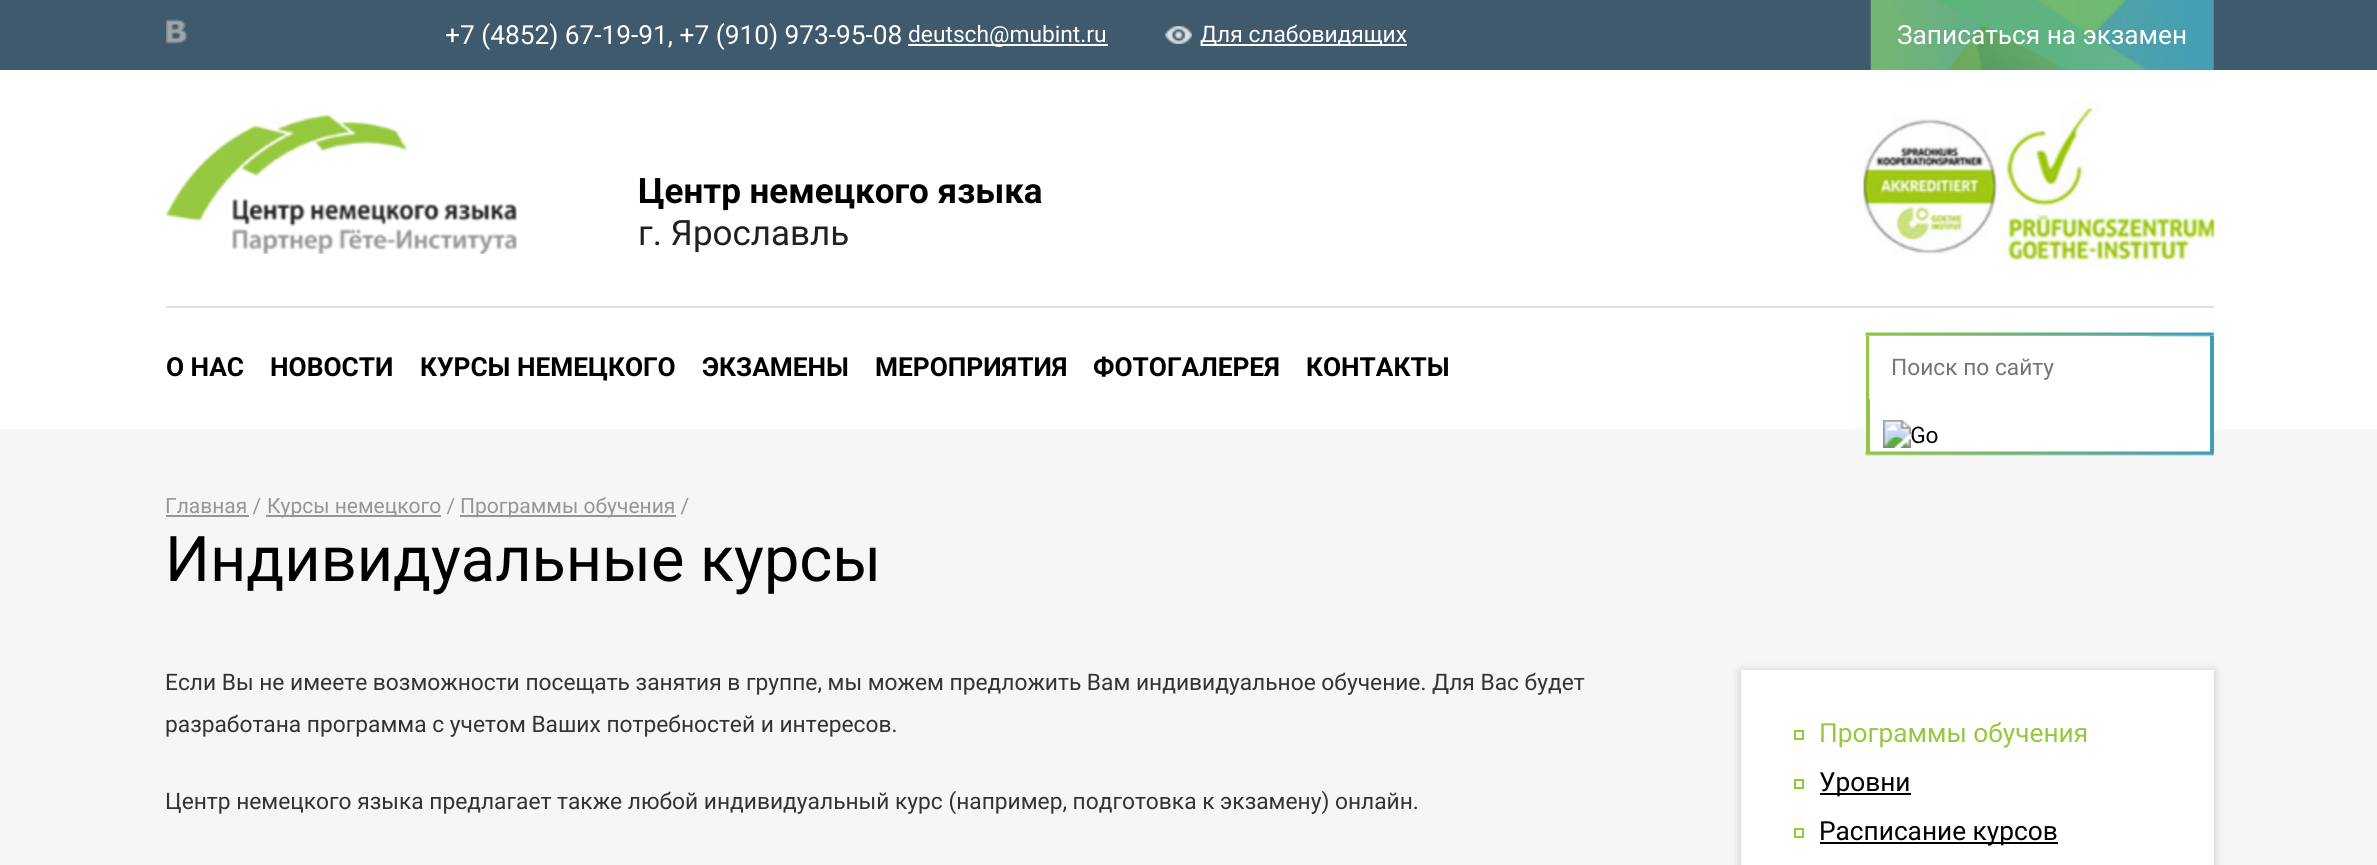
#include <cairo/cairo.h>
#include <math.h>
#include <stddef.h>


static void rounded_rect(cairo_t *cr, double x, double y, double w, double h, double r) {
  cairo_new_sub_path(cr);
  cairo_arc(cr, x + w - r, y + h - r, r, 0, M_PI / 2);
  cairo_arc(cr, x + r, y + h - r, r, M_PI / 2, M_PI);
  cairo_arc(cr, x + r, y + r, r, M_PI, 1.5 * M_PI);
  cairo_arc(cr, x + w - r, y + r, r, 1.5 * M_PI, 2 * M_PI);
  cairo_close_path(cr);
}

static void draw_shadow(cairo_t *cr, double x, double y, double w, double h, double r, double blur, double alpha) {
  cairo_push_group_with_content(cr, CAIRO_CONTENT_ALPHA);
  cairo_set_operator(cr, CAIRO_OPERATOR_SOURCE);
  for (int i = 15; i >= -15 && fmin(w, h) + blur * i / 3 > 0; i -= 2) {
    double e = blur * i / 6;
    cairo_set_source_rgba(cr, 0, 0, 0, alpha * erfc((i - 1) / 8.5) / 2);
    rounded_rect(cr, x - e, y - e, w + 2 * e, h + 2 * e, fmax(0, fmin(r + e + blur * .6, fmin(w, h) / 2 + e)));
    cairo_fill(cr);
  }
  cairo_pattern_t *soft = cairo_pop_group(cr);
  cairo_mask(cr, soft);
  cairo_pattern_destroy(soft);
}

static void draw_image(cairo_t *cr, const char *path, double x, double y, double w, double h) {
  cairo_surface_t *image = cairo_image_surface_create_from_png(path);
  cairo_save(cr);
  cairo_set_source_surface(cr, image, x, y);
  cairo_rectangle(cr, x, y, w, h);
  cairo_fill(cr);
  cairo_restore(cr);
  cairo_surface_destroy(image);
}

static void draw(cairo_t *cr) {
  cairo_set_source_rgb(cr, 246 / 255.0, 246 / 255.0, 246 / 255.0);
  cairo_paint(cr);
  cairo_set_source_rgb(cr, 1, 1, 1);
  cairo_rectangle(cr, 0, 70, 2377, 359);
  cairo_fill(cr);
  cairo_set_source_rgb(cr, 64 / 255.0, 90 / 255.0, 109 / 255.0);
  cairo_rectangle(cr, 0, 0, 2377, 70);
  cairo_fill(cr);
  draw_image(cr, "images/1.png", 166, 19, 22, 25);
  cairo_set_source_rgb(cr, 1, 1, 1);
  cairo_rectangle(cr, 908, 44, 200, 2);
  cairo_fill(cr);
  draw_image(cr, "images/2.png", 1165, 26, 27, 18);
  cairo_rectangle(cr, 1201, 44, 206, 2);
  cairo_fill(cr);
  draw_image(cr, "images/3.png", 1870, 0, 344, 70);
  cairo_rectangle(cr, 1870, 429, 340, 23);
  cairo_fill(cr);
  cairo_set_source_rgb(cr, 64 / 255.0, 155 / 255.0, 188 / 255.0);
  cairo_rectangle(cr, 2210, 336, 4, 116);
  cairo_fill(cr);
  cairo_set_source_rgb(cr, 147 / 255.0, 198 / 255.0, 69 / 255.0);
  cairo_rectangle(cr, 1866, 336, 4, 116);
  cairo_fill(cr);
  draw_image(cr, "images/4.png", 1864, 332, 350, 124);
  cairo_set_source_rgb(cr, 1, 1, 1);
  cairo_rectangle(cr, 1869, 336, 280, 63);
  cairo_fill(cr);
  draw_image(cr, "images/5.png", 1883, 420, 55, 28);
  cairo_set_source_rgb(cr, 223 / 255.0, 223 / 255.0, 223 / 255.0);
  cairo_rectangle(cr, 166, 306, 2048, 2);
  cairo_fill(cr);
  draw_image(cr, "images/6.png", 165, 114, 352, 140);
  draw_image(cr, "images/7.png", 1863, 102, 352, 166);
  cairo_set_source_rgb(cr, 148 / 255.0, 150 / 255.0, 153 / 255.0);
  cairo_rectangle(cr, 166, 515, 83, 2);
  cairo_fill(cr);
  cairo_rectangle(cr, 266, 515, 175, 2);
  cairo_fill(cr);
  cairo_rectangle(cr, 460, 515, 216, 2);
  cairo_fill(cr);
  cairo_set_source_rgb(cr, 0, 0, 0);
  draw_shadow(cr, 1741, 672, 473, 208, 0, 5, 0.21);
  cairo_set_source_rgb(cr, 1, 1, 1);
  cairo_rectangle(cr, 1741, 670, 473, 195);
  cairo_fill(cr);
  cairo_rectangle(cr, 1795, 731, 8, 8);
  cairo_set_source_rgb(cr, 150 / 255.0, 200 / 255.0, 62 / 255.0);
  cairo_stroke(cr);
  cairo_rectangle(cr, 1795, 780, 8, 8);
  cairo_stroke(cr);
  cairo_set_source_rgb(cr, 0, 0, 0);
  cairo_rectangle(cr, 1820, 793, 91, 2);
  cairo_fill(cr);
  cairo_rectangle(cr, 1795, 829, 8, 8);
  cairo_set_source_rgb(cr, 150 / 255.0, 200 / 255.0, 62 / 255.0);
  cairo_stroke(cr);
  cairo_set_source_rgb(cr, 0, 0, 0);
  cairo_rectangle(cr, 1820, 842, 238, 2);
  cairo_fill(cr);
  cairo_select_font_face(cr, "Roboto", CAIRO_FONT_SLANT_NORMAL, CAIRO_FONT_WEIGHT_NORMAL);
  cairo_set_font_size(cr, 26.25);
  cairo_set_source_rgb(cr, 1, 1, 1);
  cairo_move_to(cr, 445, 44);
  cairo_show_text(cr, "+7 (4852) 67-19-91, +7 (910) 973-95-08");
  cairo_set_font_size(cr, 22.75);
  cairo_move_to(cr, 908, 42);
  cairo_show_text(cr, "deutsch@mubint.ru");
  cairo_move_to(cr, 1200, 42);
  cairo_show_text(cr, "Для слабовидящих");
  cairo_set_font_size(cr, 26.25);
  cairo_move_to(cr, 1897, 44);
  cairo_show_text(cr, "Записаться на экзамен");
  cairo_select_font_face(cr, "Roboto", CAIRO_FONT_SLANT_NORMAL, CAIRO_FONT_WEIGHT_BOLD);
  cairo_set_source_rgb(cr, 0, 0, 0);
  cairo_move_to(cr, 166, 376);
  cairo_show_text(cr, "О НАС");
  cairo_move_to(cr, 270, 376);
  cairo_show_text(cr, "НОВОСТИ");
  cairo_move_to(cr, 420, 376);
  cairo_show_text(cr, "КУРСЫ НЕМЕЦКОГО");
  cairo_move_to(cr, 702, 376);
  cairo_show_text(cr, "ЭКЗАМЕНЫ");
  cairo_move_to(cr, 875, 376);
  cairo_show_text(cr, "МЕРОПРИЯТИЯ");
  cairo_move_to(cr, 1093, 376);
  cairo_show_text(cr, "ФОТОГАЛЕРЕЯ");
  cairo_move_to(cr, 1306, 376);
  cairo_show_text(cr, "КОНТАКТЫ");
  cairo_select_font_face(cr, "Roboto", CAIRO_FONT_SLANT_NORMAL, CAIRO_FONT_WEIGHT_NORMAL);
  cairo_set_font_size(cr, 22.75);
  cairo_set_source_rgb(cr, 117 / 255.0, 117 / 255.0, 117 / 255.0);
  cairo_move_to(cr, 1891, 375);
  cairo_show_text(cr, "Поиск по сайту");
  cairo_select_font_face(cr, "Roboto", CAIRO_FONT_SLANT_NORMAL, CAIRO_FONT_WEIGHT_BOLD);
  cairo_set_font_size(cr, 35);
  cairo_set_source_rgb(cr, 0, 0, 0);
  cairo_move_to(cr, 638, 203);
  cairo_show_text(cr, "Центр немецкого языка");
  cairo_select_font_face(cr, "Roboto", CAIRO_FONT_SLANT_NORMAL, CAIRO_FONT_WEIGHT_NORMAL);
  cairo_set_source_rgb(cr, 35 / 255.0, 31 / 255.0, 32 / 255.0);
  cairo_move_to(cr, 638, 245);
  cairo_show_text(cr, "г. Ярославль");
  cairo_set_font_size(cr, 21);
  cairo_set_source_rgb(cr, 148 / 255.0, 150 / 255.0, 153 / 255.0);
  cairo_move_to(cr, 165, 513);
  cairo_show_text(cr, "Главная /");
  cairo_move_to(cr, 267, 513);
  cairo_show_text(cr, "Курсы немецкого /");
  cairo_move_to(cr, 460, 513);
  cairo_show_text(cr, "Программы обучения /");
  cairo_set_font_size(cr, 63);
  cairo_set_source_rgb(cr, 0, 0, 0);
  cairo_move_to(cr, 165, 581);
  cairo_show_text(cr, "Индивидуальные курсы");
  cairo_set_font_size(cr, 22.75);
  cairo_set_source_rgb(cr, 51 / 255.0, 51 / 255.0, 51 / 255.0);
  cairo_move_to(cr, 165, 690);
  cairo_show_text(cr, "Если Вы не имеете возможности посещать занятия в группе, мы можем предложить Вам индивидуальное обучение. Для Вас будет");
  cairo_move_to(cr, 165, 732);
  cairo_show_text(cr, "разработана программа с учетом Ваших потребностей и интересов.");
  cairo_move_to(cr, 165, 809);
  cairo_show_text(cr, "Центр немецкого языка предлагает также любой индивидуальный курс (например, подготовка к экзамену) онлайн.");
  cairo_set_font_size(cr, 26.25);
  cairo_set_source_rgb(cr, 150 / 255.0, 200 / 255.0, 62 / 255.0);
  cairo_move_to(cr, 1819, 742);
  cairo_show_text(cr, "Программы обучения");
  cairo_set_source_rgb(cr, 0, 0, 0);
  cairo_move_to(cr, 1819, 791);
  cairo_show_text(cr, "Уровни");
  cairo_move_to(cr, 1819, 840);
  cairo_show_text(cr, "Расписание курсов");
}

int main(void) {
  cairo_surface_t *surface = cairo_image_surface_create(CAIRO_FORMAT_RGB24, 2377, 865);
  cairo_t *cr = cairo_create(surface);
  cairo_font_options_t *options = cairo_font_options_create();
  cairo_font_options_set_hint_metrics(options, CAIRO_HINT_METRICS_OFF);
  cairo_font_options_set_hint_style(options, CAIRO_HINT_STYLE_NONE);
  cairo_set_font_options(cr, options);
  cairo_set_miter_limit(cr, 4);
  draw(cr);
  cairo_surface_write_to_png(surface, "out.png");
  cairo_font_options_destroy(options);
  cairo_destroy(cr);
  cairo_surface_destroy(surface);
  return 0;
}
